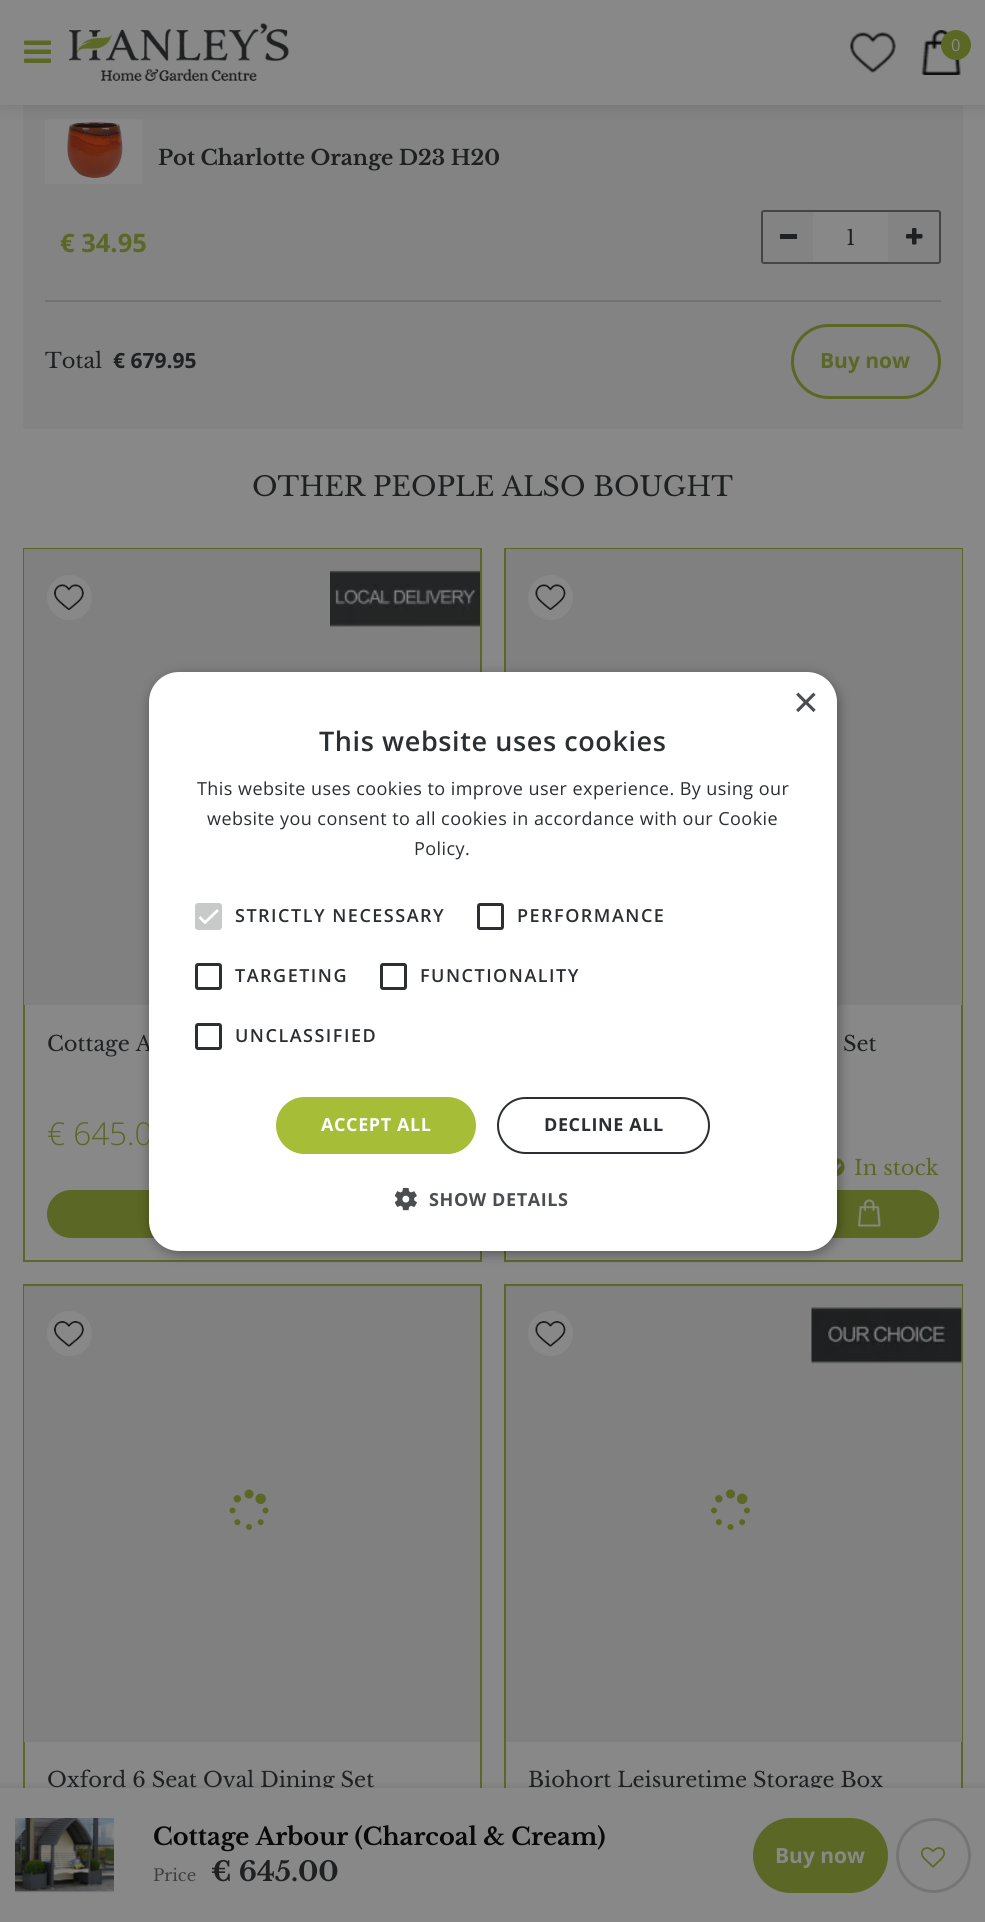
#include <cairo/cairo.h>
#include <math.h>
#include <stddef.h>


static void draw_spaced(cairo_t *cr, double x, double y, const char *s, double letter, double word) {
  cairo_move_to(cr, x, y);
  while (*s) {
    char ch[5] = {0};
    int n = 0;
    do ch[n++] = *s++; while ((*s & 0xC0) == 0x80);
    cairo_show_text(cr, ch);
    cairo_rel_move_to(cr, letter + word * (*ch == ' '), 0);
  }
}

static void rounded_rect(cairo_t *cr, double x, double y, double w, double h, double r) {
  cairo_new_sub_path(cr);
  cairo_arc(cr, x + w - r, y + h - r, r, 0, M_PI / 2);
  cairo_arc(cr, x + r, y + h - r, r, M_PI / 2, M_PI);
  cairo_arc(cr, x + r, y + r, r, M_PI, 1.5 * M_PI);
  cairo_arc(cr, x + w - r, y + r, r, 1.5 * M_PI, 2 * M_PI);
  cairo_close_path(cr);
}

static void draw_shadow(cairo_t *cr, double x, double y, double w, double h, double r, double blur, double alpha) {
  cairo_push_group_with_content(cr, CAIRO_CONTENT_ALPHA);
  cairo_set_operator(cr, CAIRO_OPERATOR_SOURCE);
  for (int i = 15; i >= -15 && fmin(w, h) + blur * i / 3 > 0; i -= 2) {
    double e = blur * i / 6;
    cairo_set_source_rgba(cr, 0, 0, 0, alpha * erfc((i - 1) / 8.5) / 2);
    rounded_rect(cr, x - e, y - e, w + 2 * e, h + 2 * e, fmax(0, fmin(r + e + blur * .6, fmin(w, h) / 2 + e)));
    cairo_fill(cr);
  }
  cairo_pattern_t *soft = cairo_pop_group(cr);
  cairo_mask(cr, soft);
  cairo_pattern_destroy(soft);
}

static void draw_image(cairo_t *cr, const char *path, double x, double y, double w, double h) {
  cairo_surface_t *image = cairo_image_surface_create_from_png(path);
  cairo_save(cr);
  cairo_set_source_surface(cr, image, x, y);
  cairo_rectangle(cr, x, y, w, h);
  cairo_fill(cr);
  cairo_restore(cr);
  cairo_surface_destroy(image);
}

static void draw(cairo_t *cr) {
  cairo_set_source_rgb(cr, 136 / 255.0, 136 / 255.0, 136 / 255.0);
  cairo_paint(cr);
  cairo_set_source_rgb(cr, 131 / 255.0, 131 / 255.0, 131 / 255.0);
  cairo_rectangle(cr, 23, 105, 940, 324);
  cairo_fill(cr);
  draw_image(cr, "images/5.png", 45, 119, 98, 65);
  cairo_set_source_rgb(cr, 9 / 255.0, 9 / 255.0, 9 / 255.0);
  draw_shadow(cr, 0, 0, 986, 105, 0, 7.5, 0.15);
  cairo_set_source_rgb(cr, 136 / 255.0, 136 / 255.0, 136 / 255.0);
  cairo_rectangle(cr, 0, 0, 985, 105);
  cairo_fill(cr);
  draw_image(cr, "images/1.png", 69, 23, 221, 58);
  draw_image(cr, "images/2.png", 24, 40, 27, 23);
  draw_image(cr, "images/3.png", 850, 32, 46, 41);
  draw_image(cr, "images/4.png", 921, 30, 40, 45);
  cairo_set_source_rgb(cr, 91 / 255.0, 103 / 255.0, 36 / 255.0);
  cairo_arc(cr, 956, 45, 15, 0, 2 * M_PI);
  cairo_fill(cr);
  cairo_set_source_rgb(cr, 113 / 255.0, 113 / 255.0, 113 / 255.0);
  cairo_rectangle(cr, 45, 300, 896, 2);
  cairo_fill(cr);
  cairo_set_source_rgb(cr, 136 / 255.0, 136 / 255.0, 136 / 255.0);
  rounded_rect(cr, 762, 211, 178, 52, 2);
  cairo_fill_preserve(cr);
  cairo_set_source_rgb(cr, 68 / 255.0, 68 / 255.0, 68 / 255.0);
  cairo_stroke(cr);
  cairo_set_source_rgba(cr, 30 / 255.0, 32 / 255.0, 33 / 255.0, 0.05);
  cairo_rectangle(cr, 763, 212, 50, 50);
  cairo_fill(cr);
  cairo_set_source_rgb(cr, 30 / 255.0, 32 / 255.0, 33 / 255.0);
  cairo_rectangle(cr, 780, 234, 17, 5);
  cairo_fill(cr);
  cairo_set_source_rgba(cr, 30 / 255.0, 32 / 255.0, 33 / 255.0, 0.05);
  cairo_rectangle(cr, 888, 212, 51, 50);
  cairo_fill(cr);
  draw_image(cr, "images/6.png", 906, 228, 17, 17);
  rounded_rect(cr, 792.5, 325.5, 147, 72, 36);
  cairo_set_source_rgb(cr, 91 / 255.0, 103 / 255.0, 36 / 255.0);
  cairo_set_line_width(cr, 3);
  cairo_stroke(cr);
  cairo_rectangle(cr, 24, 549, 457, 712);
  cairo_set_line_width(cr, 2);
  cairo_stroke(cr);
  cairo_set_source_rgb(cr, 128 / 255.0, 128 / 255.0, 128 / 255.0);
  cairo_rectangle(cr, 24, 549, 456, 456);
  cairo_fill(cr);
  draw_image(cr, "images/7.png", 330, 570, 150, 57);
  cairo_set_source_rgb(cr, 136 / 255.0, 136 / 255.0, 136 / 255.0);
  cairo_arc(cr, 69.5, 597.5, 22.5, 0, 2 * M_PI);
  cairo_fill(cr);
  draw_image(cr, "images/8.png", 54, 584, 30, 26);
  cairo_set_source_rgb(cr, 91 / 255.0, 103 / 255.0, 36 / 255.0);
  rounded_rect(cr, 48, 1191, 409, 46, 23);
  cairo_fill_preserve(cr);
  cairo_stroke(cr);
  cairo_rectangle(cr, 505, 549, 457, 712);
  cairo_stroke(cr);
  cairo_set_source_rgb(cr, 128 / 255.0, 128 / 255.0, 128 / 255.0);
  cairo_rectangle(cr, 506, 549, 456, 456);
  cairo_fill(cr);
  cairo_set_source_rgb(cr, 136 / 255.0, 136 / 255.0, 136 / 255.0);
  cairo_arc(cr, 550.5, 597.5, 22.5, 0, 2 * M_PI);
  cairo_fill(cr);
  draw_image(cr, "images/9.png", 535, 584, 31, 26);
  draw_image(cr, "images/10.png", 837, 1158, 8, 18);
  cairo_set_source_rgb(cr, 91 / 255.0, 103 / 255.0, 36 / 255.0);
  rounded_rect(cr, 528, 1190, 411, 48, 24);
  cairo_fill(cr);
  draw_image(cr, "images/11.png", 858, 1199, 23, 28);
  rounded_rect(cr, 529, 1191, 409, 46, 23);
  cairo_stroke(cr);
  cairo_rectangle(cr, 24, 1285, 457, 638);
  cairo_stroke(cr);
  cairo_set_source_rgb(cr, 128 / 255.0, 128 / 255.0, 128 / 255.0);
  cairo_rectangle(cr, 24, 1286, 456, 456);
  cairo_fill(cr);
  draw_image(cr, "images/12.png", 229, 1489, 40, 41);
  cairo_set_source_rgb(cr, 136 / 255.0, 136 / 255.0, 136 / 255.0);
  cairo_arc(cr, 69.5, 1333.5, 22.5, 0, 2 * M_PI);
  cairo_fill(cr);
  draw_image(cr, "images/13.png", 54, 1321, 30, 26);
  cairo_rectangle(cr, 505, 1285, 457, 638);
  cairo_set_source_rgb(cr, 91 / 255.0, 103 / 255.0, 36 / 255.0);
  cairo_stroke(cr);
  cairo_set_source_rgb(cr, 128 / 255.0, 128 / 255.0, 128 / 255.0);
  cairo_rectangle(cr, 506, 1286, 456, 456);
  cairo_fill(cr);
  draw_image(cr, "images/14.png", 711, 1489, 39, 41);
  cairo_set_source_rgb(cr, 136 / 255.0, 136 / 255.0, 136 / 255.0);
  cairo_arc(cr, 550.5, 1333.5, 22.5, 0, 2 * M_PI);
  cairo_fill(cr);
  draw_image(cr, "images/15.png", 535, 1321, 31, 26);
  draw_image(cr, "images/16.png", 811, 1307, 151, 57);
  cairo_set_source_rgb(cr, 74 / 255.0, 74 / 255.0, 74 / 255.0);
  draw_shadow(cr, 0, 1788, 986, 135, 0, 4.5, 0.3);
  cairo_set_source_rgb(cr, 0, 0, 0);
  draw_shadow(cr, 150, 675, 689, 579, 30, 6, 0.35);
  cairo_select_font_face(cr, "Open Sans", CAIRO_FONT_SLANT_NORMAL, CAIRO_FONT_WEIGHT_NORMAL);
  cairo_set_font_size(cr, 16.5);
  cairo_set_source_rgb(cr, 136 / 255.0, 136 / 255.0, 136 / 255.0);
  cairo_move_to(cr, 951, 51);
  cairo_show_text(cr, "0");
  cairo_select_font_face(cr, "Libre Baskerville", CAIRO_FONT_SLANT_NORMAL, CAIRO_FONT_WEIGHT_BOLD);
  cairo_set_font_size(cr, 21);
  cairo_set_source_rgb(cr, 30 / 255.0, 32 / 255.0, 33 / 255.0);
  cairo_move_to(cr, 158, 165);
  cairo_show_text(cr, "Pot Charlotte Orange D23 H20");
  cairo_select_font_face(cr, "Open Sans", CAIRO_FONT_SLANT_NORMAL, CAIRO_FONT_WEIGHT_BOLD);
  cairo_set_font_size(cr, 25.5);
  cairo_set_source_rgb(cr, 91 / 255.0, 103 / 255.0, 36 / 255.0);
  cairo_move_to(cr, 60, 252);
  cairo_show_text(cr, "€ 34.95");
  cairo_select_font_face(cr, "Libre Baskerville", CAIRO_FONT_SLANT_NORMAL, CAIRO_FONT_WEIGHT_NORMAL);
  cairo_set_font_size(cr, 21);
  cairo_set_source_rgb(cr, 30 / 255.0, 32 / 255.0, 33 / 255.0);
  cairo_move_to(cr, 846, 245);
  cairo_show_text(cr, "1");
  cairo_move_to(cr, 45, 368);
  cairo_show_text(cr, "Total");
  cairo_select_font_face(cr, "Open Sans", CAIRO_FONT_SLANT_NORMAL, CAIRO_FONT_WEIGHT_BOLD);
  cairo_move_to(cr, 113, 368);
  cairo_show_text(cr, "€ 679.95");
  cairo_set_source_rgb(cr, 91 / 255.0, 103 / 255.0, 36 / 255.0);
  cairo_move_to(cr, 820, 368);
  cairo_show_text(cr, "Buy now");
  cairo_select_font_face(cr, "Libre Baskerville", CAIRO_FONT_SLANT_NORMAL, CAIRO_FONT_WEIGHT_NORMAL);
  cairo_set_font_size(cr, 27);
  cairo_set_source_rgb(cr, 30 / 255.0, 32 / 255.0, 33 / 255.0);
  cairo_move_to(cr, 252, 496);
  cairo_show_text(cr, "OTHER PEOPLE ALSO BOUGHT");
  cairo_set_font_size(cr, 21);
  cairo_move_to(cr, 47, 1051);
  cairo_show_text(cr, "Cottage A");
  cairo_select_font_face(cr, "Open Sans Light", CAIRO_FONT_SLANT_NORMAL, CAIRO_FONT_WEIGHT_NORMAL);
  cairo_set_font_size(cr, 31.5);
  cairo_set_source_rgb(cr, 91 / 255.0, 103 / 255.0, 36 / 255.0);
  cairo_move_to(cr, 47, 1145);
  cairo_show_text(cr, "€ 645.0");
  cairo_select_font_face(cr, "Libre Baskerville", CAIRO_FONT_SLANT_NORMAL, CAIRO_FONT_WEIGHT_NORMAL);
  cairo_set_font_size(cr, 21);
  cairo_set_source_rgb(cr, 30 / 255.0, 32 / 255.0, 33 / 255.0);
  cairo_move_to(cr, 843, 1051);
  cairo_show_text(cr, "Set");
  cairo_set_source_rgb(cr, 91 / 255.0, 103 / 255.0, 36 / 255.0);
  cairo_move_to(cr, 854, 1175);
  cairo_show_text(cr, "In stock");
  cairo_set_source_rgb(cr, 30 / 255.0, 32 / 255.0, 33 / 255.0);
  cairo_move_to(cr, 47, 1787);
  cairo_show_text(cr, "Oxford 6 Seat Oval Dining Set");
  cairo_move_to(cr, 528, 1787);
  cairo_show_text(cr, "Biohort Leisuretime Storage Box");
  cairo_set_source_rgb(cr, 136 / 255.0, 136 / 255.0, 136 / 255.0);
  cairo_rectangle(cr, 0, 1788, 985, 134);
  cairo_fill(cr);
  draw_image(cr, "images/17.png", 15, 1818, 99, 75);
  cairo_select_font_face(cr, "Libre Baskerville", CAIRO_FONT_SLANT_NORMAL, CAIRO_FONT_WEIGHT_BOLD);
  cairo_set_font_size(cr, 24);
  cairo_set_source_rgb(cr, 9 / 255.0, 9 / 255.0, 9 / 255.0);
  cairo_move_to(cr, 153, 1845);
  cairo_show_text(cr, "Cottage Arbour (Charcoal & Cream)");
  cairo_select_font_face(cr, "Libre Baskerville", CAIRO_FONT_SLANT_NORMAL, CAIRO_FONT_WEIGHT_NORMAL);
  cairo_set_font_size(cr, 16.5);
  cairo_set_source_rgb(cr, 63 / 255.0, 64 / 255.0, 64 / 255.0);
  cairo_move_to(cr, 153, 1881);
  cairo_show_text(cr, "Price");
  cairo_select_font_face(cr, "Libre Baskerville", CAIRO_FONT_SLANT_NORMAL, CAIRO_FONT_WEIGHT_BOLD);
  cairo_set_font_size(cr, 27);
  cairo_set_source_rgb(cr, 30 / 255.0, 32 / 255.0, 33 / 255.0);
  cairo_move_to(cr, 211, 1881);
  cairo_show_text(cr, "€ 645.00");
  cairo_set_source_rgb(cr, 91 / 255.0, 103 / 255.0, 36 / 255.0);
  rounded_rect(cr, 753, 1818, 135, 75, 37.5);
  cairo_fill(cr);
  cairo_select_font_face(cr, "Open Sans", CAIRO_FONT_SLANT_NORMAL, CAIRO_FONT_WEIGHT_BOLD);
  cairo_set_font_size(cr, 21);
  cairo_set_source_rgb(cr, 136 / 255.0, 136 / 255.0, 136 / 255.0);
  cairo_move_to(cr, 775, 1863);
  cairo_show_text(cr, "Buy now");
  cairo_new_path(cr);
  cairo_arc(cr, 933.5, 1855.5, 36, 0, 2 * M_PI);
  cairo_set_source_rgb(cr, 117 / 255.0, 117 / 255.0, 117 / 255.0);
  cairo_set_line_width(cr, 3);
  cairo_stroke(cr);
  draw_image(cr, "images/18.png", 921, 1847, 24, 21);
  cairo_set_source_rgb(cr, 1, 1, 1);
  rounded_rect(cr, 149, 672, 688, 579, 30);
  cairo_fill(cr);
  cairo_select_font_face(cr, "Liberation Sans", CAIRO_FONT_SLANT_NORMAL, CAIRO_FONT_WEIGHT_NORMAL);
  cairo_set_font_size(cr, 44);
  cairo_set_source_rgb(cr, 75 / 255.0, 78 / 255.0, 80 / 255.0);
  cairo_move_to(cr, 793, 717);
  cairo_show_text(cr, "×");
  cairo_select_font_face(cr, "Open Sans SemiBold", CAIRO_FONT_SLANT_NORMAL, CAIRO_FONT_WEIGHT_NORMAL);
  cairo_set_font_size(cr, 27);
  cairo_set_source_rgb(cr, 43 / 255.0, 47 / 255.0, 49 / 255.0);
  draw_spaced(cr, 319, 751, "This website uses cookies", 0.6, 0);
  cairo_select_font_face(cr, "Open Sans", CAIRO_FONT_SLANT_NORMAL, CAIRO_FONT_WEIGHT_NORMAL);
  cairo_set_font_size(cr, 18);
  draw_spaced(cr, 197, 795, "This website uses cookies to improve user experience. By using our", 0.45, 0);
  draw_spaced(cr, 207, 825, "website you consent to all cookies in accordance with our Cookie", 0.45, 0);
  draw_spaced(cr, 414, 855, "Policy.", 0.45, 0);
  cairo_set_source_rgb(cr, 200 / 255.0, 201 / 255.0, 201 / 255.0);
  rounded_rect(cr, 195, 903, 27, 27, 3);
  cairo_fill(cr);
  cairo_new_path(cr);
  cairo_move_to(cr, 199.5, 917);
  cairo_line_to(cr, 205, 922.5);
  cairo_line_to(cr, 218, 910);
  cairo_set_source_rgb(cr, 1, 1, 1);
  cairo_set_line_width(cr, 2.7);
  cairo_stroke(cr);
  cairo_select_font_face(cr, "Open Sans SemiBold", CAIRO_FONT_SLANT_NORMAL, CAIRO_FONT_WEIGHT_NORMAL);
  cairo_set_source_rgb(cr, 43 / 255.0, 47 / 255.0, 49 / 255.0);
  draw_spaced(cr, 235, 922, "STRICTLY NECESSARY", 1.5, 0);
  rounded_rect(cr, 478.5, 904.5, 24, 24, 1.5);
  cairo_set_line_width(cr, 3);
  cairo_stroke(cr);
  draw_spaced(cr, 517, 922, "PERFORMANCE", 1.5, 0);
  rounded_rect(cr, 196.5, 964.5, 24, 24, 1.5);
  cairo_stroke(cr);
  draw_spaced(cr, 235, 982, "TARGETING", 1.5, 0);
  rounded_rect(cr, 381.5, 964.5, 24, 24, 1.5);
  cairo_stroke(cr);
  draw_spaced(cr, 420, 982, "FUNCTIONALITY", 1.5, 0);
  rounded_rect(cr, 196.5, 1024.5, 24, 24, 1.5);
  cairo_stroke(cr);
  draw_spaced(cr, 235, 1042, "UNCLASSIFIED", 1.5, 0);
  cairo_set_source_rgb(cr, 165 / 255.0, 189 / 255.0, 55 / 255.0);
  rounded_rect(cr, 276, 1097, 200, 57, 28.5);
  cairo_fill(cr);
  cairo_select_font_face(cr, "Open Sans", CAIRO_FONT_SLANT_NORMAL, CAIRO_FONT_WEIGHT_BOLD);
  cairo_set_source_rgb(cr, 1, 1, 1);
  draw_spaced(cr, 321, 1131, "ACCEPT ALL", 0.6, 0);
  rounded_rect(cr, 498, 1098, 211, 55, 27.5);
  cairo_set_source_rgb(cr, 43 / 255.0, 47 / 255.0, 49 / 255.0);
  cairo_set_line_width(cr, 2);
  cairo_stroke(cr);
  draw_spaced(cr, 544, 1131, "DECLINE ALL", 0.6, 0);
  draw_image(cr, "images/19.png", 395, 1188, 22, 23);
  cairo_set_source_rgb(cr, 75 / 255.0, 78 / 255.0, 80 / 255.0);
  draw_spaced(cr, 429, 1206, "SHOW DETAILS", 0.6, 0);
}

int main(void) {
  cairo_surface_t *surface = cairo_image_surface_create(CAIRO_FORMAT_RGB24, 985, 1922);
  cairo_t *cr = cairo_create(surface);
  cairo_font_options_t *options = cairo_font_options_create();
  cairo_font_options_set_hint_metrics(options, CAIRO_HINT_METRICS_OFF);
  cairo_font_options_set_hint_style(options, CAIRO_HINT_STYLE_NONE);
  cairo_set_font_options(cr, options);
  cairo_set_miter_limit(cr, 4);
  draw(cr);
  cairo_surface_write_to_png(surface, "out.png");
  cairo_font_options_destroy(options);
  cairo_destroy(cr);
  cairo_surface_destroy(surface);
  return 0;
}
